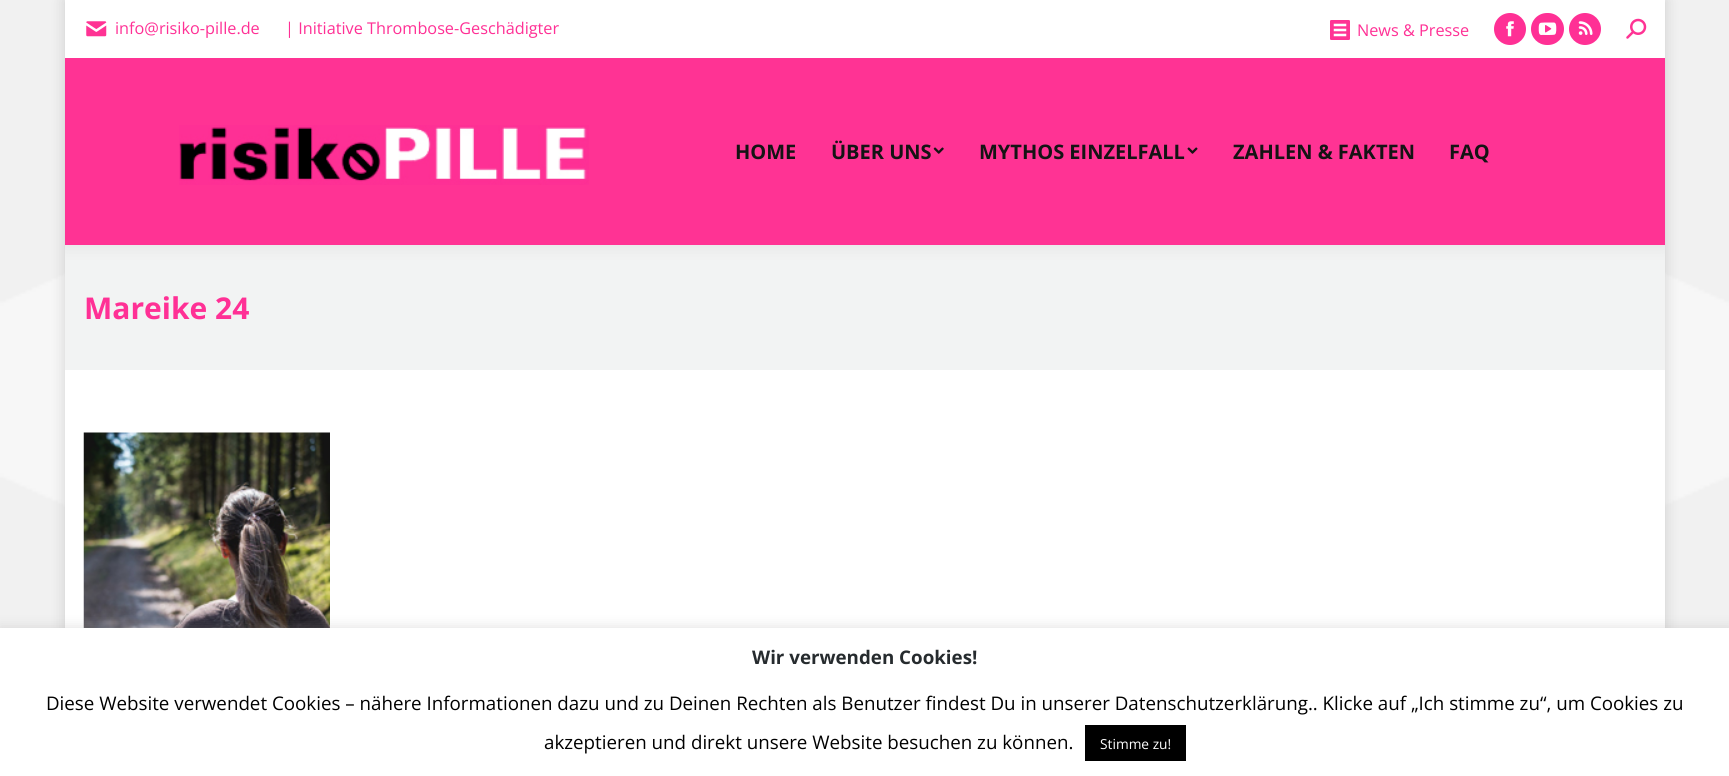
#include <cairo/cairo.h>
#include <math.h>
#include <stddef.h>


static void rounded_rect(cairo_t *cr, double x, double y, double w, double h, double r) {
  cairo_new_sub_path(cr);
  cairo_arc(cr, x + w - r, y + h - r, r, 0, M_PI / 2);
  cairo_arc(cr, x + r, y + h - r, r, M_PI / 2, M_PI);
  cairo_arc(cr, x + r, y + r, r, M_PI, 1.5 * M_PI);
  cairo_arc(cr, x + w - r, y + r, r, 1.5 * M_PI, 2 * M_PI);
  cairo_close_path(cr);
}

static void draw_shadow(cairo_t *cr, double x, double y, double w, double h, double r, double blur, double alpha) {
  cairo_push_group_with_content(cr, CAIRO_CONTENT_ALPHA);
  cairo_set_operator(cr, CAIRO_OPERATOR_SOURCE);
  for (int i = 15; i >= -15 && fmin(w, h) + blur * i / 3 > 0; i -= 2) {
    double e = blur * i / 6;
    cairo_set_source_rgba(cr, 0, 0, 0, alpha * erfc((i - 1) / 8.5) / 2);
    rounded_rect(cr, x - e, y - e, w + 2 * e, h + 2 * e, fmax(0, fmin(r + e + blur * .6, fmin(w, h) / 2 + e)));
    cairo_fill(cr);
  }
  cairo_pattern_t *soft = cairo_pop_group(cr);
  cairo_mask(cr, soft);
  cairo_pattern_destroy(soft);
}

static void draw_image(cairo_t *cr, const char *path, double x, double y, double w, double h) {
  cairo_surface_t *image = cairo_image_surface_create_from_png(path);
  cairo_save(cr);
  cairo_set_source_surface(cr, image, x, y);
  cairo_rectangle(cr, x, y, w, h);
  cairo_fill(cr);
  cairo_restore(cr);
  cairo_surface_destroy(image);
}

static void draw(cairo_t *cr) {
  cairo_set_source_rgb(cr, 1, 1, 1);
  cairo_paint(cr);
  draw_image(cr, "images/1.png", 0, 0, 1729, 628);
  cairo_set_source_rgb(cr, 0, 0, 0);
  draw_shadow(cr, 65, 0, 1600, 766, 0, 7.5, 0.15);
  cairo_set_source_rgb(cr, 1, 1, 1);
  cairo_rectangle(cr, 65, 370, 1600, 258);
  cairo_fill(cr);
  cairo_set_source_rgb(cr, 242 / 255.0, 243 / 255.0, 243 / 255.0);
  cairo_rectangle(cr, 65, 245, 1600, 125);
  cairo_fill(cr);
  cairo_save(cr);
  cairo_rectangle(cr, 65, 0, 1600, 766);
  cairo_clip(cr);
  cairo_set_source_rgb(cr, 0, 0, 0);
  draw_shadow(cr, 64, -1, 1602, 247, 0, 9.5, 0.07);
  cairo_restore(cr);
  cairo_set_source_rgb(cr, 1, 51 / 255.0, 148 / 255.0);
  cairo_rectangle(cr, 65, 58, 1600, 187);
  cairo_fill(cr);
  cairo_set_source_rgb(cr, 1, 1, 1);
  cairo_rectangle(cr, 65, 0, 1600, 58);
  cairo_fill(cr);
  draw_image(cr, "images/2.png", 86, 21, 21, 16);
  draw_image(cr, "images/3.png", 1330, 20, 20, 20);
  cairo_set_source_rgb(cr, 1, 48 / 255.0, 149 / 255.0);
  cairo_arc(cr, 1510, 29, 16, 0, 2 * M_PI);
  cairo_fill(cr);
  draw_image(cr, "images/4.png", 1506, 21, 8, 16);
  rounded_rect(cr, 1531, 13, 33, 32, 16);
  cairo_fill(cr);
  draw_image(cr, "images/5.png", 1538, 22, 19, 13);
  cairo_arc(cr, 1585, 29, 16, 0, 2 * M_PI);
  cairo_fill(cr);
  draw_image(cr, "images/6.png", 1578, 21, 15, 14);
  draw_image(cr, "images/7.png", 1626, 18, 21, 21);
  draw_image(cr, "images/8.png", 179, 125, 410, 60);
  draw_image(cr, "images/9.png", 933, 147, 11, 7);
  draw_image(cr, "images/10.png", 1187, 147, 11, 7);
  draw_image(cr, "images/11.png", 83, 432, 247, 196);
  cairo_set_source_rgb(cr, 172 / 255.0, 171 / 255.0, 171 / 255.0);
  draw_shadow(cr, 0, 626, 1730, 149, 0, 6, 0.3);
  cairo_set_source_rgb(cr, 1, 1, 1);
  cairo_rectangle(cr, 0, 628, 1729, 148);
  cairo_fill(cr);
  cairo_set_source_rgb(cr, 0, 0, 0);
  cairo_rectangle(cr, 1085, 725, 101, 36);
  cairo_fill(cr);
  cairo_select_font_face(cr, "Open Sans", CAIRO_FONT_SLANT_NORMAL, CAIRO_FONT_WEIGHT_NORMAL);
  cairo_set_font_size(cr, 16.25);
  cairo_set_source_rgb(cr, 1, 48 / 255.0, 149 / 255.0);
  cairo_move_to(cr, 115, 34);
  cairo_show_text(cr, "info@risiko-pille.de");
  cairo_move_to(cr, 285, 34);
  cairo_show_text(cr, "| Initiative Thrombose-Geschädigter");
  cairo_move_to(cr, 1357, 36);
  cairo_show_text(cr, "News & Presse");
  cairo_select_font_face(cr, "Open Sans", CAIRO_FONT_SLANT_NORMAL, CAIRO_FONT_WEIGHT_BOLD);
  cairo_set_font_size(cr, 20);
  cairo_set_source_rgb(cr, 20 / 255.0, 20 / 255.0, 20 / 255.0);
  cairo_move_to(cr, 735, 159);
  cairo_show_text(cr, "HOME");
  cairo_move_to(cr, 831, 159);
  cairo_show_text(cr, "ÜBER UNS");
  cairo_move_to(cr, 979, 159);
  cairo_show_text(cr, "MYTHOS EINZELFALL");
  cairo_move_to(cr, 1233, 159);
  cairo_show_text(cr, "ZAHLEN & FAKTEN");
  cairo_move_to(cr, 1449, 159);
  cairo_show_text(cr, "FAQ");
  cairo_set_font_size(cr, 30);
  cairo_set_source_rgb(cr, 1, 48 / 255.0, 149 / 255.0);
  cairo_move_to(cr, 84, 319);
  cairo_show_text(cr, "Mareike 24");
  cairo_set_font_size(cr, 18.75);
  cairo_set_source_rgb(cr, 38 / 255.0, 43 / 255.0, 46 / 255.0);
  cairo_move_to(cr, 752, 664);
  cairo_show_text(cr, "Wir verwenden Cookies!");
  cairo_select_font_face(cr, "Open Sans", CAIRO_FONT_SLANT_NORMAL, CAIRO_FONT_WEIGHT_NORMAL);
  cairo_set_source_rgb(cr, 0, 0, 0);
  cairo_move_to(cr, 46, 710);
  cairo_show_text(cr, "Diese Website verwendet Cookies – nähere Informationen dazu und zu Deinen Rechten als Benutzer findest Du in unserer Datenschutzerklärung.. Klicke auf „Ich stimme zu“, um Cookies zu");
  cairo_move_to(cr, 544, 749);
  cairo_show_text(cr, "akzeptieren und direkt unsere Website besuchen zu können.");
  cairo_set_font_size(cr, 13.75);
  cairo_set_source_rgb(cr, 1, 1, 1);
  cairo_move_to(cr, 1100, 749);
  cairo_show_text(cr, "Stimme zu!");
}

int main(void) {
  cairo_surface_t *surface = cairo_image_surface_create(CAIRO_FORMAT_RGB24, 1729, 776);
  cairo_t *cr = cairo_create(surface);
  cairo_font_options_t *options = cairo_font_options_create();
  cairo_font_options_set_hint_metrics(options, CAIRO_HINT_METRICS_OFF);
  cairo_font_options_set_hint_style(options, CAIRO_HINT_STYLE_NONE);
  cairo_set_font_options(cr, options);
  cairo_set_miter_limit(cr, 4);
  draw(cr);
  cairo_surface_write_to_png(surface, "out.png");
  cairo_font_options_destroy(options);
  cairo_destroy(cr);
  cairo_surface_destroy(surface);
  return 0;
}
